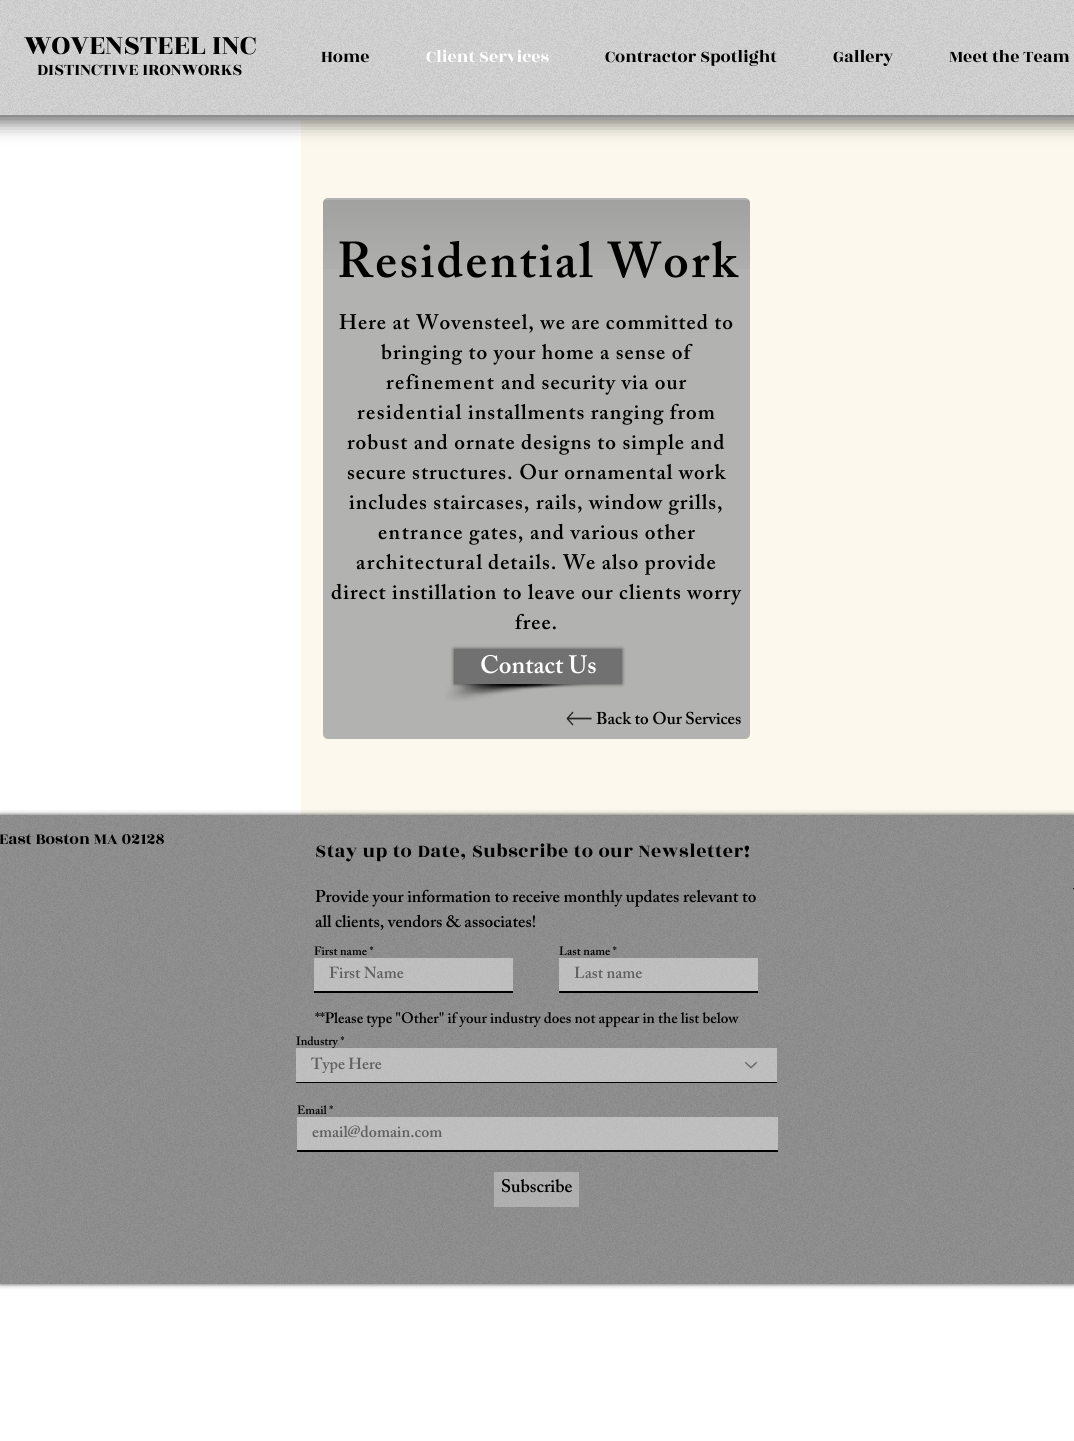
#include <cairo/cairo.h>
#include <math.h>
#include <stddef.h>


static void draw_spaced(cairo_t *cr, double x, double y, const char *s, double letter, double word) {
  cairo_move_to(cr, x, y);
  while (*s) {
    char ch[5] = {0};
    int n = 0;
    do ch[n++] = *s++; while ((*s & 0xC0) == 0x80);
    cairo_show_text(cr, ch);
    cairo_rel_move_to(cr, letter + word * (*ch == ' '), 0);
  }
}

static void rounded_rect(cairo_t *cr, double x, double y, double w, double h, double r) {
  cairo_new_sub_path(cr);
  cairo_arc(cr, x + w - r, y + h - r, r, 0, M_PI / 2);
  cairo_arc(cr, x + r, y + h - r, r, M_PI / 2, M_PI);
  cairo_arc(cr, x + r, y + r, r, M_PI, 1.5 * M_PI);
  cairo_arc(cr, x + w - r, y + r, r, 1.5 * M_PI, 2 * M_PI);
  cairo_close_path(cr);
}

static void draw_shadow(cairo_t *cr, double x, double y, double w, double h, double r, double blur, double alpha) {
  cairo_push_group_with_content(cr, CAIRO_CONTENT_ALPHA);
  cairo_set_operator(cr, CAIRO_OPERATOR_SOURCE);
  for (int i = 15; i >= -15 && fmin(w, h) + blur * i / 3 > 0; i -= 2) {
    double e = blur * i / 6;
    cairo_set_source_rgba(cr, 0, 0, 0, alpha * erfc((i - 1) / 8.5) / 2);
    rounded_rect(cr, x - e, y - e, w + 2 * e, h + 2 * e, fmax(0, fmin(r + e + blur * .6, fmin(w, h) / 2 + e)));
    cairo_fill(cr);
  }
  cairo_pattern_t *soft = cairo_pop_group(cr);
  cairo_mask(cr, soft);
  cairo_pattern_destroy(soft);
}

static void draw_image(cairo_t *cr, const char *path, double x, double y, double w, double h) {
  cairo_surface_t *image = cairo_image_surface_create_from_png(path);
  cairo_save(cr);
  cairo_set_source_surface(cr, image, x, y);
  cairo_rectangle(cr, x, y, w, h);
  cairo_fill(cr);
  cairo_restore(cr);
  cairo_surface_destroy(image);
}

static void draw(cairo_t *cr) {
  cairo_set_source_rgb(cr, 1, 1, 1);
  cairo_paint(cr);
  cairo_set_source_rgb(cr, 252 / 255.0, 248 / 255.0, 237 / 255.0);
  cairo_rectangle(cr, 301, 120, 773, 695);
  cairo_fill(cr);
  cairo_set_source_rgb(cr, 0, 0, 0);
  draw_shadow(cr, -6, -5, 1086, 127, 0, 9.5, 0.6);
  cairo_set_source_rgb(cr, 212 / 255.0, 212 / 255.0, 212 / 255.0);
  cairo_rectangle(cr, 0, 0, 1074, 115);
  cairo_fill(cr);
  draw_image(cr, "images/1.png", 0, 0, 1074, 115);
  cairo_set_source_rgb(cr, 178 / 255.0, 178 / 255.0, 177 / 255.0);
  rounded_rect(cr, 323, 198, 427, 541, 5);
  cairo_fill(cr);
  draw_image(cr, "images/2.png", 323, 200, 427, 69);
  cairo_set_source_rgb(cr, 114 / 255.0, 113 / 255.0, 113 / 255.0);
  cairo_rectangle(cr, 454, 649, 168, 35);
  cairo_fill(cr);
  draw_image(cr, "images/3.png", 445, 684, 154, 18);
  cairo_save(cr);
  cairo_set_fill_rule(cr, CAIRO_FILL_RULE_EVEN_ODD);
  cairo_new_path(cr);
  cairo_move_to(cr, 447, 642);
  cairo_line_to(cr, 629, 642);
  cairo_line_to(cr, 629, 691);
  cairo_line_to(cr, 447, 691);
  cairo_close_path(cr);
  cairo_move_to(cr, 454, 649);
  cairo_line_to(cr, 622, 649);
  cairo_line_to(cr, 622, 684);
  cairo_line_to(cr, 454, 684);
  cairo_close_path(cr);
  cairo_clip(cr);
  cairo_set_source_rgb(cr, 0, 0, 0);
  draw_shadow(cr, 454, 649, 168, 35, 0, 2, 0.56);
  cairo_restore(cr);
  draw_image(cr, "images/4.png", 566, 711, 26, 15);
  cairo_set_source_rgb(cr, 0, 0, 0);
  draw_shadow(cr, 0, 815, 1074, 469, 0, 2.5, 0.7);
  cairo_set_source_rgb(cr, 144 / 255.0, 144 / 255.0, 144 / 255.0);
  cairo_rectangle(cr, 0, 815, 1074, 469);
  cairo_fill(cr);
  draw_image(cr, "images/5.png", 0, 815, 1074, 469);
  cairo_set_source_rgba(cr, 1, 1, 1, 0.43);
  cairo_rectangle(cr, 314, 958, 199, 33);
  cairo_fill(cr);
  cairo_set_source_rgb(cr, 0, 0, 0);
  cairo_rectangle(cr, 314, 991, 199, 2);
  cairo_fill(cr);
  cairo_set_source_rgba(cr, 1, 1, 1, 0.43);
  cairo_rectangle(cr, 559, 958, 199, 33);
  cairo_fill(cr);
  cairo_set_source_rgb(cr, 0, 0, 0);
  cairo_rectangle(cr, 559, 991, 199, 2);
  cairo_fill(cr);
  cairo_rectangle(cr, 296, 1082, 481, 1);
  cairo_fill(cr);
  cairo_set_source_rgba(cr, 1, 1, 1, 0.43);
  cairo_rectangle(cr, 297, 1117, 481, 33);
  cairo_fill(cr);
  cairo_set_source_rgb(cr, 0, 0, 0);
  cairo_rectangle(cr, 297, 1150, 481, 2);
  cairo_fill(cr);
  cairo_set_source_rgba(cr, 1, 1, 1, 0.3);
  cairo_rectangle(cr, 494, 1172, 85, 35);
  cairo_fill(cr);
  cairo_set_source_rgb(cr, 0, 0, 0);
  cairo_rectangle(cr, 1073, 888, 1, 1);
  cairo_fill(cr);
  cairo_select_font_face(cr, "Rozha One", CAIRO_FONT_SLANT_NORMAL, CAIRO_FONT_WEIGHT_NORMAL);
  cairo_set_font_size(cr, 30);
  cairo_move_to(cr, 24, 54);
  cairo_show_text(cr, "WOVENSTEEL INC");
  cairo_set_font_size(cr, 18);
  cairo_move_to(cr, 37, 75);
  cairo_show_text(cr, "DISTINCTIVE IRONWORKS");
  cairo_move_to(cr, 321, 62);
  cairo_show_text(cr, "Home");
  cairo_set_source_rgb(cr, 1, 1, 1);
  cairo_move_to(cr, 426, 62);
  cairo_show_text(cr, "Client Services");
  cairo_set_source_rgb(cr, 0, 0, 0);
  cairo_move_to(cr, 605, 62);
  cairo_show_text(cr, "Contractor Spotlight");
  cairo_move_to(cr, 833, 62);
  cairo_show_text(cr, "Gallery");
  cairo_move_to(cr, 949, 62);
  cairo_show_text(cr, "Meet the Team");
  cairo_select_font_face(cr, "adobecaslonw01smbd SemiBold", CAIRO_FONT_SLANT_NORMAL, CAIRO_FONT_WEIGHT_NORMAL);
  cairo_set_font_size(cr, 50);
  draw_spaced(cr, 337, 277, "Residential Work", 2.5, 0);
  cairo_set_font_size(cr, 21);
  draw_spaced(cr, 339, 329, "Here at Wovensteel, we are committed to", 1.05, 0);
  draw_spaced(cr, 381, 359, "bringing to your home a sense of", 1.05, 0);
  draw_spaced(cr, 386, 389, "refinement", 1.5, 0);
  draw_spaced(cr, 501, 389, "and security via our", 1.05, 0);
  draw_spaced(cr, 357, 419, "residential", 1.5, 0);
  draw_spaced(cr, 468, 419, "installments ranging from", 1.05, 0);
  draw_spaced(cr, 347, 449, "robust and ornate designs to simple and", 1.05, 0);
  draw_spaced(cr, 347, 479, "secure structures. Our ornamental work", 1.05, 0);
  draw_spaced(cr, 349, 509, "includes staircases, rails, window grills,", 1.05, 0);
  draw_spaced(cr, 378, 539, "entrance", 1.5, 0);
  draw_spaced(cr, 469, 539, "gates, and various other", 1.05, 0);
  draw_spaced(cr, 356, 569, "architectural", 1.5, 0);
  draw_spaced(cr, 488, 569, "details. We also provide", 1.05, 0);
  draw_spaced(cr, 331, 599, "direct instillation to leave our clients worry", 1.05, 0);
  draw_spaced(cr, 515, 629, "free.", 1.05, 0);
  cairo_set_font_size(cr, 25);
  cairo_set_source_rgb(cr, 1, 1, 1);
  cairo_move_to(cr, 480, 673);
  cairo_show_text(cr, "Contact Us");
  cairo_set_font_size(cr, 17);
  cairo_set_source_rgb(cr, 0, 0, 0);
  cairo_move_to(cr, 596, 724);
  cairo_show_text(cr, "Back to Our Services");
  cairo_select_font_face(cr, "Rozha One", CAIRO_FONT_SLANT_NORMAL, CAIRO_FONT_WEIGHT_NORMAL);
  cairo_move_to(cr, -1, 844);
  cairo_show_text(cr, "East Boston MA 02128");
  cairo_set_font_size(cr, 20);
  draw_spaced(cr, 315, 857, "Stay up to Date, Subscribe to our Newsletter!", 0.6, 0);
  cairo_select_font_face(cr, "adobecaslonw01smbd SemiBold", CAIRO_FONT_SLANT_NORMAL, CAIRO_FONT_WEIGHT_NORMAL);
  cairo_set_font_size(cr, 17);
  cairo_move_to(cr, 315, 902);
  cairo_show_text(cr, "Provide your information to receive monthly updates relevant to");
  cairo_move_to(cr, 315, 927);
  cairo_show_text(cr, "all clients, vendors & associates!");
  cairo_set_font_size(cr, 12);
  cairo_move_to(cr, 314, 955);
  cairo_show_text(cr, "First name *");
  cairo_set_font_size(cr, 16);
  cairo_set_source_rgb(cr, 96 / 255.0, 96 / 255.0, 96 / 255.0);
  cairo_move_to(cr, 329, 978);
  cairo_show_text(cr, "First Name");
  cairo_set_font_size(cr, 12);
  cairo_set_source_rgb(cr, 0, 0, 0);
  cairo_move_to(cr, 559, 955);
  cairo_show_text(cr, "Last name *");
  cairo_set_font_size(cr, 16);
  cairo_set_source_rgb(cr, 96 / 255.0, 96 / 255.0, 96 / 255.0);
  cairo_move_to(cr, 574, 978);
  cairo_show_text(cr, "Last name");
  cairo_set_font_size(cr, 15);
  cairo_set_source_rgb(cr, 0, 0, 0);
  cairo_move_to(cr, 315, 1023);
  cairo_show_text(cr, "**Please type \"Other\" if your industry does not appear in the list below");
  cairo_set_font_size(cr, 12);
  cairo_move_to(cr, 296, 1045);
  cairo_show_text(cr, "Industry *");
  cairo_set_source_rgba(cr, 1, 1, 1, 0.43);
  cairo_rectangle(cr, 296, 1048, 481, 34);
  cairo_fill(cr);
  cairo_save(cr);
  cairo_rectangle(cr, 311, 1057, 418, 16);
  cairo_clip(cr);
  cairo_set_font_size(cr, 16);
  cairo_set_source_rgb(cr, 96 / 255.0, 96 / 255.0, 96 / 255.0);
  cairo_move_to(cr, 311, 1069);
  cairo_show_text(cr, "Type Here");
  cairo_restore(cr);
  draw_image(cr, "images/6.png", 745, 1062, 12, 7);
  cairo_set_source_rgb(cr, 0, 0, 0);
  cairo_move_to(cr, 297, 1114);
  cairo_show_text(cr, "Email *");
  cairo_set_font_size(cr, 16);
  cairo_set_source_rgb(cr, 96 / 255.0, 96 / 255.0, 96 / 255.0);
  cairo_move_to(cr, 312, 1137);
  cairo_show_text(cr, "email@domain.com");
  cairo_set_font_size(cr, 18);
  cairo_set_source_rgb(cr, 0, 0, 0);
  cairo_move_to(cr, 501, 1192);
  cairo_show_text(cr, "Subscribe");
}

int main(void) {
  cairo_surface_t *surface = cairo_image_surface_create(CAIRO_FORMAT_RGB24, 1074, 1441);
  cairo_t *cr = cairo_create(surface);
  cairo_font_options_t *options = cairo_font_options_create();
  cairo_font_options_set_hint_metrics(options, CAIRO_HINT_METRICS_OFF);
  cairo_font_options_set_hint_style(options, CAIRO_HINT_STYLE_NONE);
  cairo_set_font_options(cr, options);
  cairo_set_miter_limit(cr, 4);
  draw(cr);
  cairo_surface_write_to_png(surface, "out.png");
  cairo_font_options_destroy(options);
  cairo_destroy(cr);
  cairo_surface_destroy(surface);
  return 0;
}
